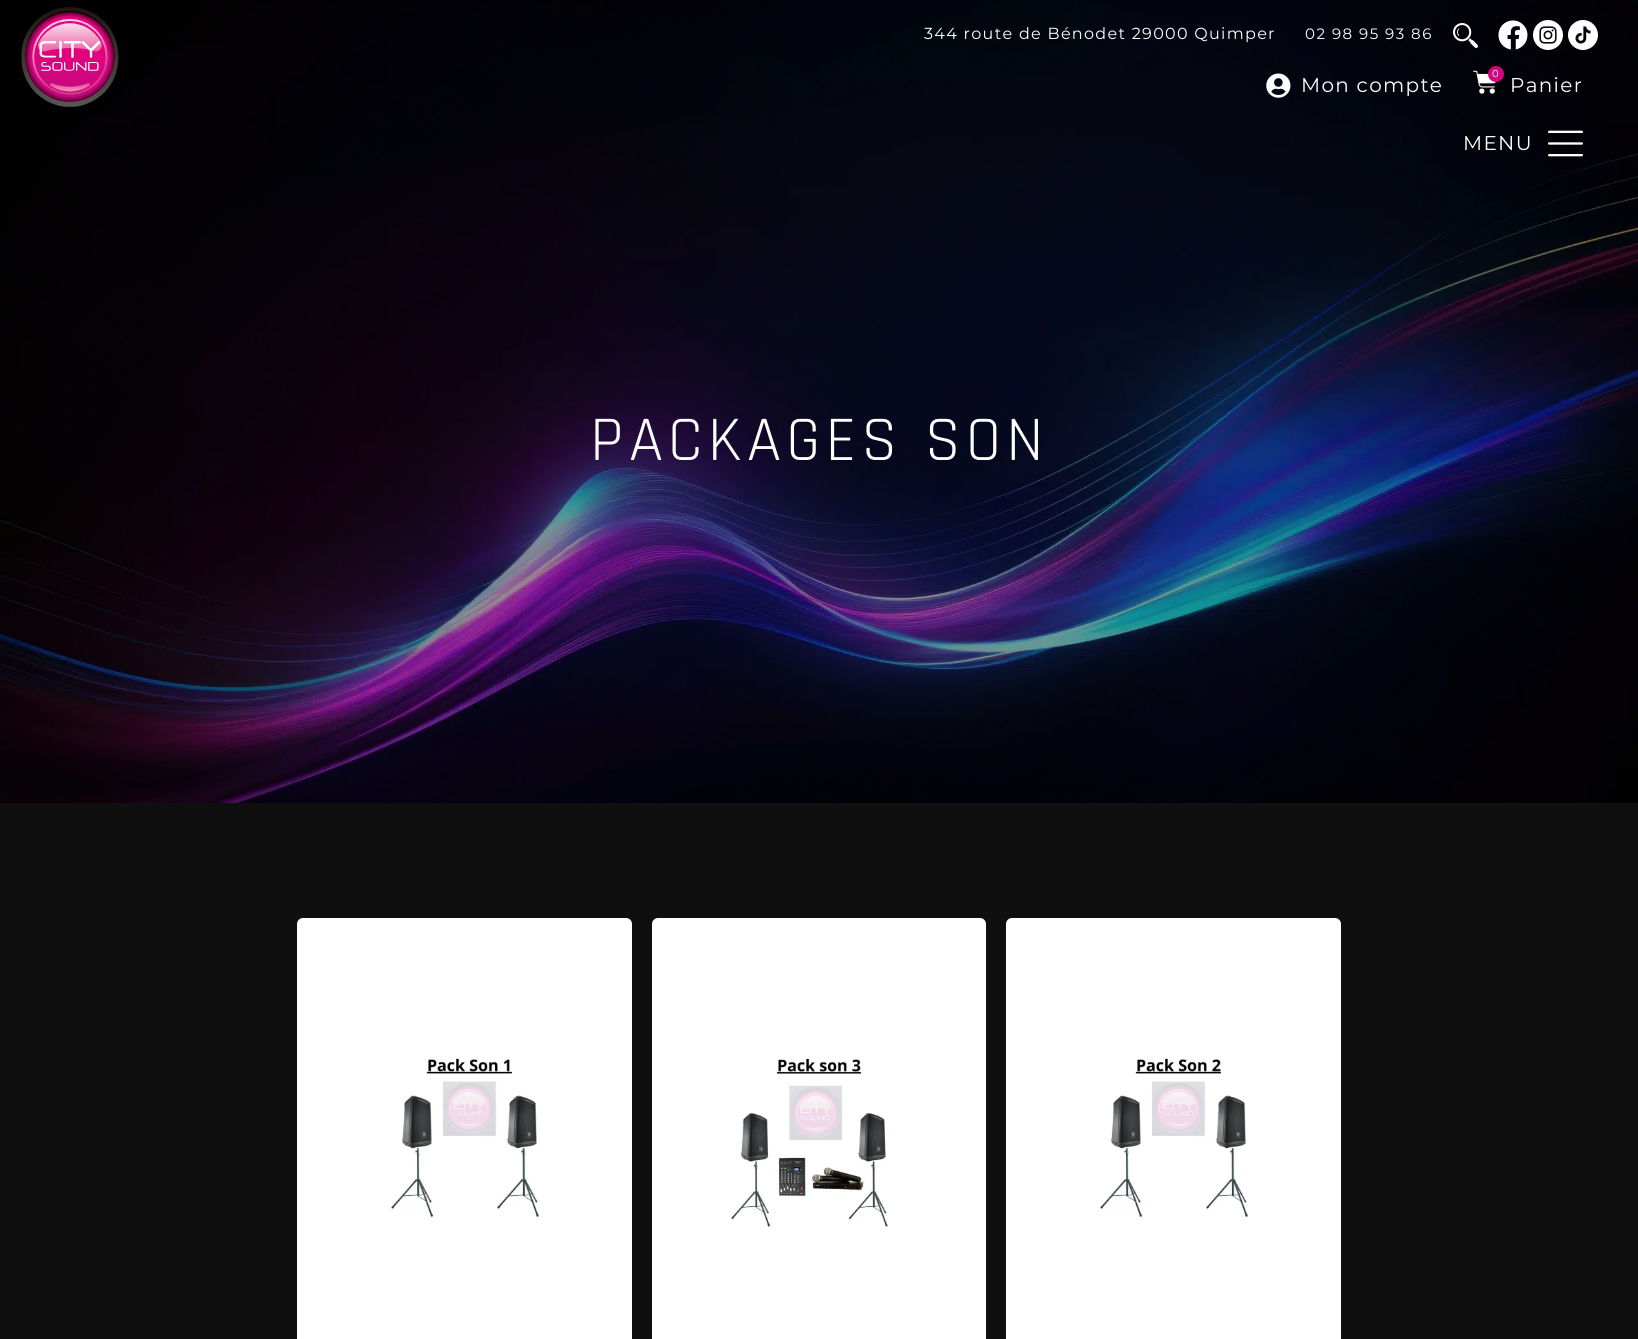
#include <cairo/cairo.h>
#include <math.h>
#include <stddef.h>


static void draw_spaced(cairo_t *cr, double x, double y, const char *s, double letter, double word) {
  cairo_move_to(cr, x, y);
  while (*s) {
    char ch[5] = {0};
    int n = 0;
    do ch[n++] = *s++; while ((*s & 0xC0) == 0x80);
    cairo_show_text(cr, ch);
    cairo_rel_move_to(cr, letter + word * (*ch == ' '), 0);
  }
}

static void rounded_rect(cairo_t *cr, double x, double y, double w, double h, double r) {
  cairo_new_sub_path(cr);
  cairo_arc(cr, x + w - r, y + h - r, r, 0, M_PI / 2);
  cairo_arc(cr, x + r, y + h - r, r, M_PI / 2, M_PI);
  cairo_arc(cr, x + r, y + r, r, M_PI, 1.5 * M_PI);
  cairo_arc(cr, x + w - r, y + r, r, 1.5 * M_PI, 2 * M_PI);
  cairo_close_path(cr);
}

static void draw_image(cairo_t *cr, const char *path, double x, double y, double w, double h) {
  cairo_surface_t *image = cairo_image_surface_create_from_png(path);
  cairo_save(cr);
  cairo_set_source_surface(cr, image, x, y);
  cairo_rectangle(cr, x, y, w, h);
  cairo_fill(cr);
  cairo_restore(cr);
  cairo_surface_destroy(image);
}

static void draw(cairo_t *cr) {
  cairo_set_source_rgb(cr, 15 / 255.0, 15 / 255.0, 15 / 255.0);
  cairo_paint(cr);
  draw_image(cr, "images/9.png", 0, 0, 1638, 803);
  draw_image(cr, "images/1.png", 21, 7, 98, 100);
  draw_image(cr, "images/2.png", 1453, 23, 25, 25);
  draw_image(cr, "images/3.png", 1498, 20, 30, 30);
  draw_image(cr, "images/4.png", 1533, 20, 30, 30);
  draw_image(cr, "images/5.png", 1568, 20, 30, 30);
  draw_image(cr, "images/6.png", 1473, 70, 24, 24);
  cairo_set_source_rgb(cr, 212 / 255.0, 6 / 255.0, 127 / 255.0);
  cairo_arc(cr, 1496, 74, 8, 0, 2 * M_PI);
  cairo_fill(cr);
  draw_image(cr, "images/7.png", 1266, 73, 25, 25);
  draw_image(cr, "images/8.png", 1548, 130, 35, 27);
  cairo_set_source_rgb(cr, 1, 1, 1);
  rounded_rect(cr, 297, 918, 335, 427, 6);
  cairo_fill(cr);
  draw_image(cr, "images/10.png", 391, 1058, 148, 160);
  rounded_rect(cr, 652, 918, 334, 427, 6);
  cairo_fill(cr);
  draw_image(cr, "images/11.png", 731, 1058, 157, 170);
  rounded_rect(cr, 1006, 918, 335, 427, 6);
  cairo_fill(cr);
  draw_image(cr, "images/12.png", 1100, 1058, 148, 160);
  cairo_select_font_face(cr, "Montserrat", CAIRO_FONT_SLANT_NORMAL, CAIRO_FONT_WEIGHT_NORMAL);
  cairo_set_font_size(cr, 16);
  draw_spaced(cr, 924, 39, "344 route de Bénodet 29000 Quimper", 1.3, 0);
  cairo_set_font_size(cr, 15);
  draw_spaced(cr, 1305, 39, "02 98 95 93 86", 1.5, 0);
  cairo_set_font_size(cr, 10);
  draw_spaced(cr, 1492, 77, "0", 1.3, 0);
  cairo_set_font_size(cr, 20);
  draw_spaced(cr, 1301, 92, "Mon compte", 1.3, 0);
  draw_spaced(cr, 1510, 92, "Panier", 1.3, 0);
  draw_spaced(cr, 1463, 150, "MENU", 1.3, 0);
  cairo_select_font_face(cr, "Rajdhani", CAIRO_FONT_SLANT_NORMAL, CAIRO_FONT_WEIGHT_NORMAL);
  cairo_set_font_size(cr, 64);
  draw_spaced(cr, 590, 460, "PACKAGES SON", 5.1, 0);
}

int main(void) {
  cairo_surface_t *surface = cairo_image_surface_create(CAIRO_FORMAT_RGB24, 1638, 1339);
  cairo_t *cr = cairo_create(surface);
  cairo_font_options_t *options = cairo_font_options_create();
  cairo_font_options_set_hint_metrics(options, CAIRO_HINT_METRICS_OFF);
  cairo_font_options_set_hint_style(options, CAIRO_HINT_STYLE_NONE);
  cairo_set_font_options(cr, options);
  cairo_set_miter_limit(cr, 4);
  draw(cr);
  cairo_surface_write_to_png(surface, "out.png");
  cairo_font_options_destroy(options);
  cairo_destroy(cr);
  cairo_surface_destroy(surface);
  return 0;
}
